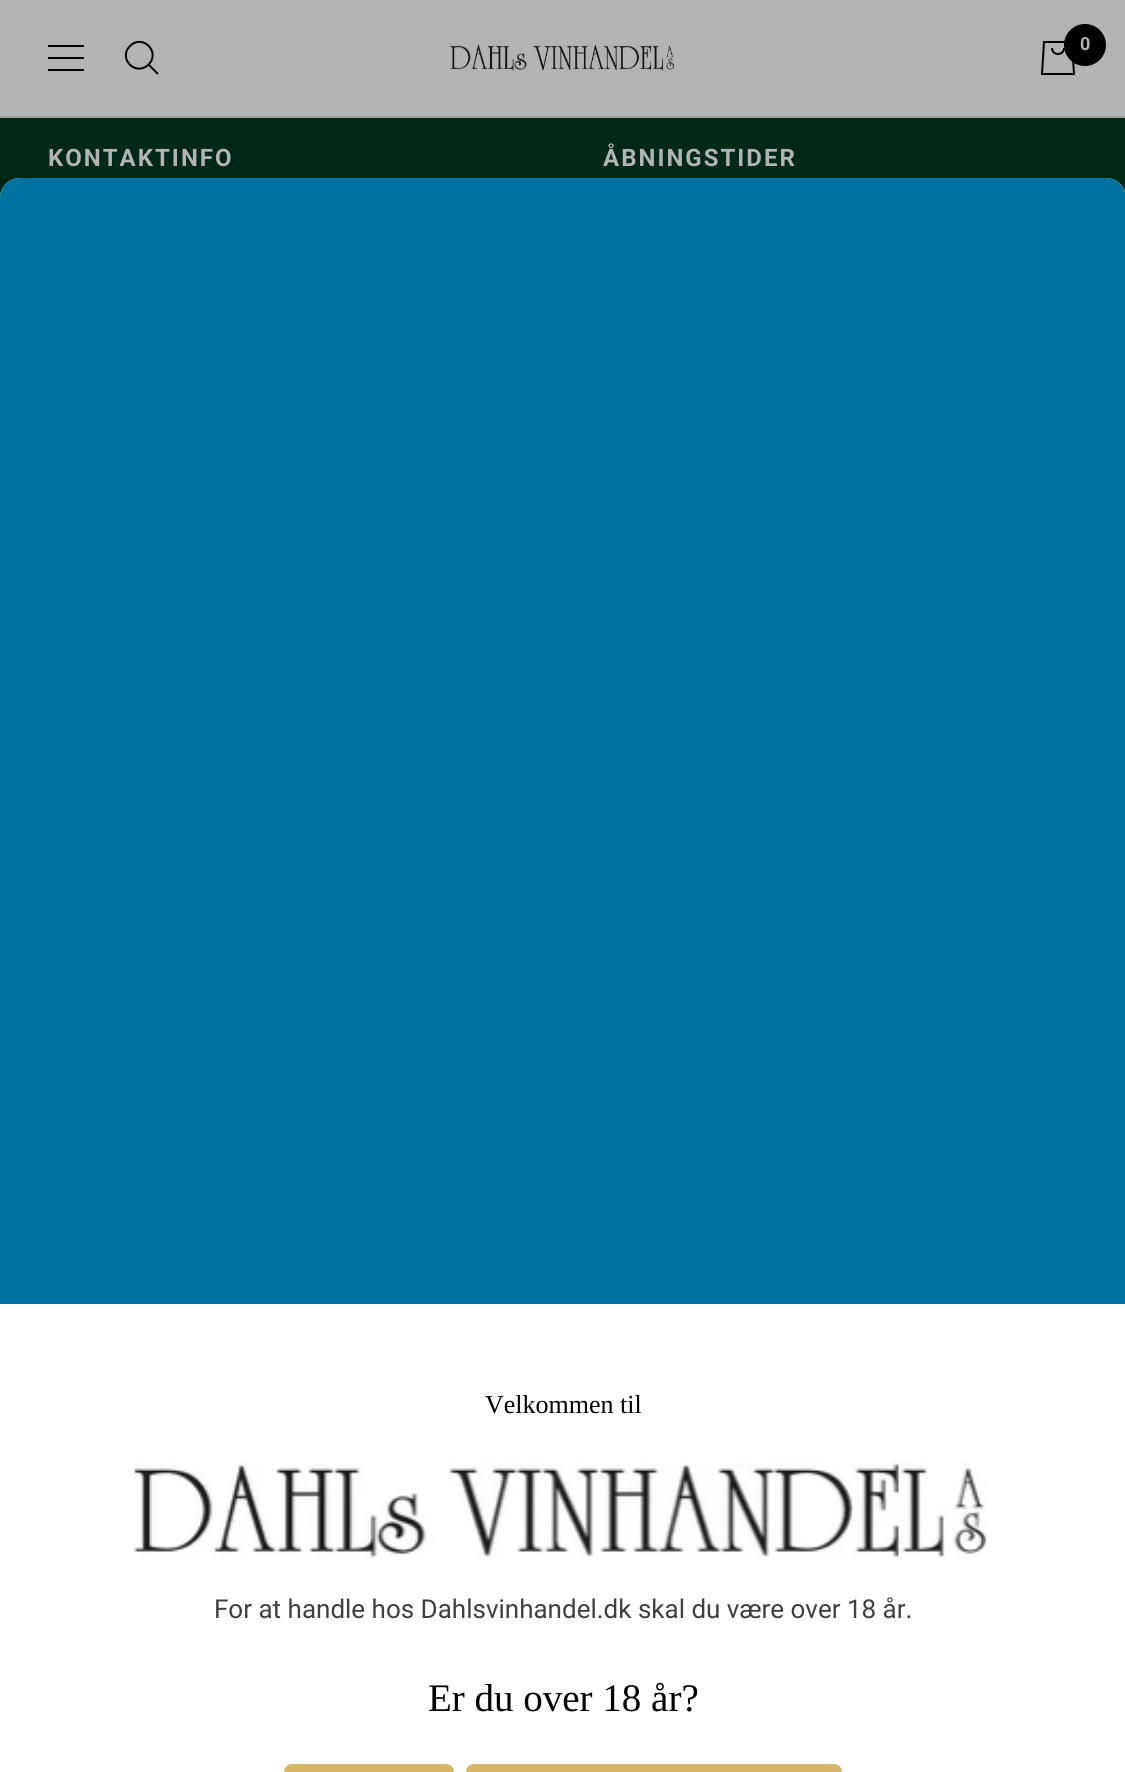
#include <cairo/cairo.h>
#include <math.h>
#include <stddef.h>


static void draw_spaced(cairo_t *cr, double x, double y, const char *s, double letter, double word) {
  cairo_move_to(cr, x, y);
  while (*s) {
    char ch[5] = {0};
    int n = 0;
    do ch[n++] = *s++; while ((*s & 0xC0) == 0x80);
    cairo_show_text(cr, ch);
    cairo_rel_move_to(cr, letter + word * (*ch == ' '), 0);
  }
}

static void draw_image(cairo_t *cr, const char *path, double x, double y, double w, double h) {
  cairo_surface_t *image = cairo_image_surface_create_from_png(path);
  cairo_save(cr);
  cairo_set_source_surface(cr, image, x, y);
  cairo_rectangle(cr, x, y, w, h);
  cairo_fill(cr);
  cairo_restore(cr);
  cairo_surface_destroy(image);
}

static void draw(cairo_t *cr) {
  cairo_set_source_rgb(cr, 0, 40 / 255.0, 22 / 255.0);
  cairo_paint(cr);
  cairo_set_source_rgb(cr, 158 / 255.0, 158 / 255.0, 158 / 255.0);
  cairo_rectangle(cr, 0, 116, 1125, 2);
  cairo_fill(cr);
  cairo_set_source_rgb(cr, 179 / 255.0, 179 / 255.0, 179 / 255.0);
  cairo_rectangle(cr, 0, 0, 1125, 116);
  cairo_fill(cr);
  cairo_new_path(cr);
  cairo_move_to(cr, 48, 46);
  cairo_line_to(cr, 84, 46);
  cairo_move_to(cr, 48, 70);
  cairo_line_to(cr, 84, 70);
  cairo_close_path(cr);
  cairo_move_to(cr, 48, 58);
  cairo_line_to(cr, 84, 58);
  cairo_close_path(cr);
  cairo_set_source_rgb(cr, 0, 0, 0);
  cairo_stroke(cr);
  cairo_new_path(cr);
  cairo_move_to(cr, 148.5, 64.5);
  cairo_curve_to(cr, 161, 52, 142.5, 33.5, 130, 46);
  cairo_curve_to(cr, 117.5, 58.5, 136, 77, 148.5, 64.5);
  cairo_close_path(cr);
  cairo_move_to(cr, 148.5, 64.5);
  cairo_line_to(cr, 158, 74);
  cairo_stroke(cr);
  draw_image(cr, "images/1.png", 450, 44, 224, 27);
  cairo_new_path(cr);
  cairo_move_to(cr, 1044, 42);
  cairo_line_to(cr, 1072, 42);
  cairo_line_to(cr, 1074, 74);
  cairo_line_to(cr, 1042, 74);
  cairo_close_path(cr);
  cairo_move_to(cr, 1052, 48);
  cairo_curve_to(cr, 1052, 56, 1064, 56, 1064, 48);
  cairo_stroke(cr);
  cairo_arc(cr, 1085, 45, 21, 0, 2 * M_PI);
  cairo_fill(cr);
  cairo_set_source_rgb(cr, 1, 1, 1);
  cairo_new_path(cr);
  cairo_move_to(cr, 20, 178);
  cairo_line_to(cr, 1106, 178);
  cairo_curve_to(cr, 1117, 178, 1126, 187, 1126, 198);
  cairo_line_to(cr, 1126, 1772);
  cairo_line_to(cr, 0, 1772);
  cairo_line_to(cr, 0, 198);
  cairo_curve_to(cr, 0, 187, 9, 178, 20, 178);
  cairo_close_path(cr);
  cairo_fill(cr);
  cairo_set_source_rgb(cr, 0, 114 / 255.0, 160 / 255.0);
  cairo_new_path(cr);
  cairo_move_to(cr, 20, 178);
  cairo_line_to(cr, 1106, 178);
  cairo_curve_to(cr, 1117, 178, 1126, 187, 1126, 198);
  cairo_line_to(cr, 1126, 1304);
  cairo_line_to(cr, 0, 1304);
  cairo_line_to(cr, 0, 198);
  cairo_curve_to(cr, 0, 187, 9, 178, 20, 178);
  cairo_close_path(cr);
  cairo_fill(cr);
  draw_image(cr, "images/2.png", 134, 1462, 853, 97);
  cairo_set_source_rgb(cr, 214 / 255.0, 183 / 255.0, 105 / 255.0);
  cairo_new_path(cr);
  cairo_move_to(cr, 292, 1764);
  cairo_line_to(cr, 446, 1764);
  cairo_curve_to(cr, 450.5, 1764, 454, 1767.5, 454, 1772);
  cairo_line_to(cr, 284, 1772);
  cairo_curve_to(cr, 284, 1767.5, 287.5, 1764, 292, 1764);
  cairo_close_path(cr);
  cairo_fill(cr);
  cairo_new_path(cr);
  cairo_move_to(cr, 474, 1764);
  cairo_line_to(cr, 834, 1764);
  cairo_curve_to(cr, 838.5, 1764, 842, 1767.5, 842, 1772);
  cairo_line_to(cr, 466, 1772);
  cairo_curve_to(cr, 466, 1767.5, 469.5, 1764, 474, 1764);
  cairo_close_path(cr);
  cairo_fill(cr);
  cairo_select_font_face(cr, "Roboto", CAIRO_FONT_SLANT_NORMAL, CAIRO_FONT_WEIGHT_BOLD);
  cairo_set_font_size(cr, 18);
  cairo_set_source_rgb(cr, 179 / 255.0, 179 / 255.0, 179 / 255.0);
  cairo_move_to(cr, 1080, 50);
  cairo_show_text(cr, "0");
  cairo_set_font_size(cr, 24);
  draw_spaced(cr, 48, 166, "KONTAKTINFO", 2, 0);
  draw_spaced(cr, 603, 166, "ÅBNINGSTIDER", 2, 0);
  cairo_select_font_face(cr, "Liberation Serif", CAIRO_FONT_SLANT_NORMAL, CAIRO_FONT_WEIGHT_NORMAL);
  cairo_set_font_size(cr, 26);
  cairo_set_source_rgb(cr, 0, 0, 0);
  cairo_move_to(cr, 485, 1413);
  cairo_show_text(cr, "Velkommen til");
  cairo_select_font_face(cr, "Roboto", CAIRO_FONT_SLANT_NORMAL, CAIRO_FONT_WEIGHT_NORMAL);
  cairo_set_source_rgb(cr, 64 / 255.0, 63 / 255.0, 63 / 255.0);
  cairo_move_to(cr, 214, 1618);
  cairo_show_text(cr, "For at handle hos Dahlsvinhandel.dk skal du være over 18 år.");
  cairo_select_font_face(cr, "Liberation Serif", CAIRO_FONT_SLANT_NORMAL, CAIRO_FONT_WEIGHT_NORMAL);
  cairo_set_font_size(cr, 39);
  cairo_set_source_rgb(cr, 0, 0, 0);
  cairo_move_to(cr, 428, 1711);
  cairo_show_text(cr, "Er du over 18 år?");
}

int main(void) {
  cairo_surface_t *surface = cairo_image_surface_create(CAIRO_FORMAT_RGB24, 1125, 1772);
  cairo_t *cr = cairo_create(surface);
  cairo_font_options_t *options = cairo_font_options_create();
  cairo_font_options_set_hint_metrics(options, CAIRO_HINT_METRICS_OFF);
  cairo_font_options_set_hint_style(options, CAIRO_HINT_STYLE_NONE);
  cairo_set_font_options(cr, options);
  cairo_set_miter_limit(cr, 4);
  draw(cr);
  cairo_surface_write_to_png(surface, "out.png");
  cairo_font_options_destroy(options);
  cairo_destroy(cr);
  cairo_surface_destroy(surface);
  return 0;
}
